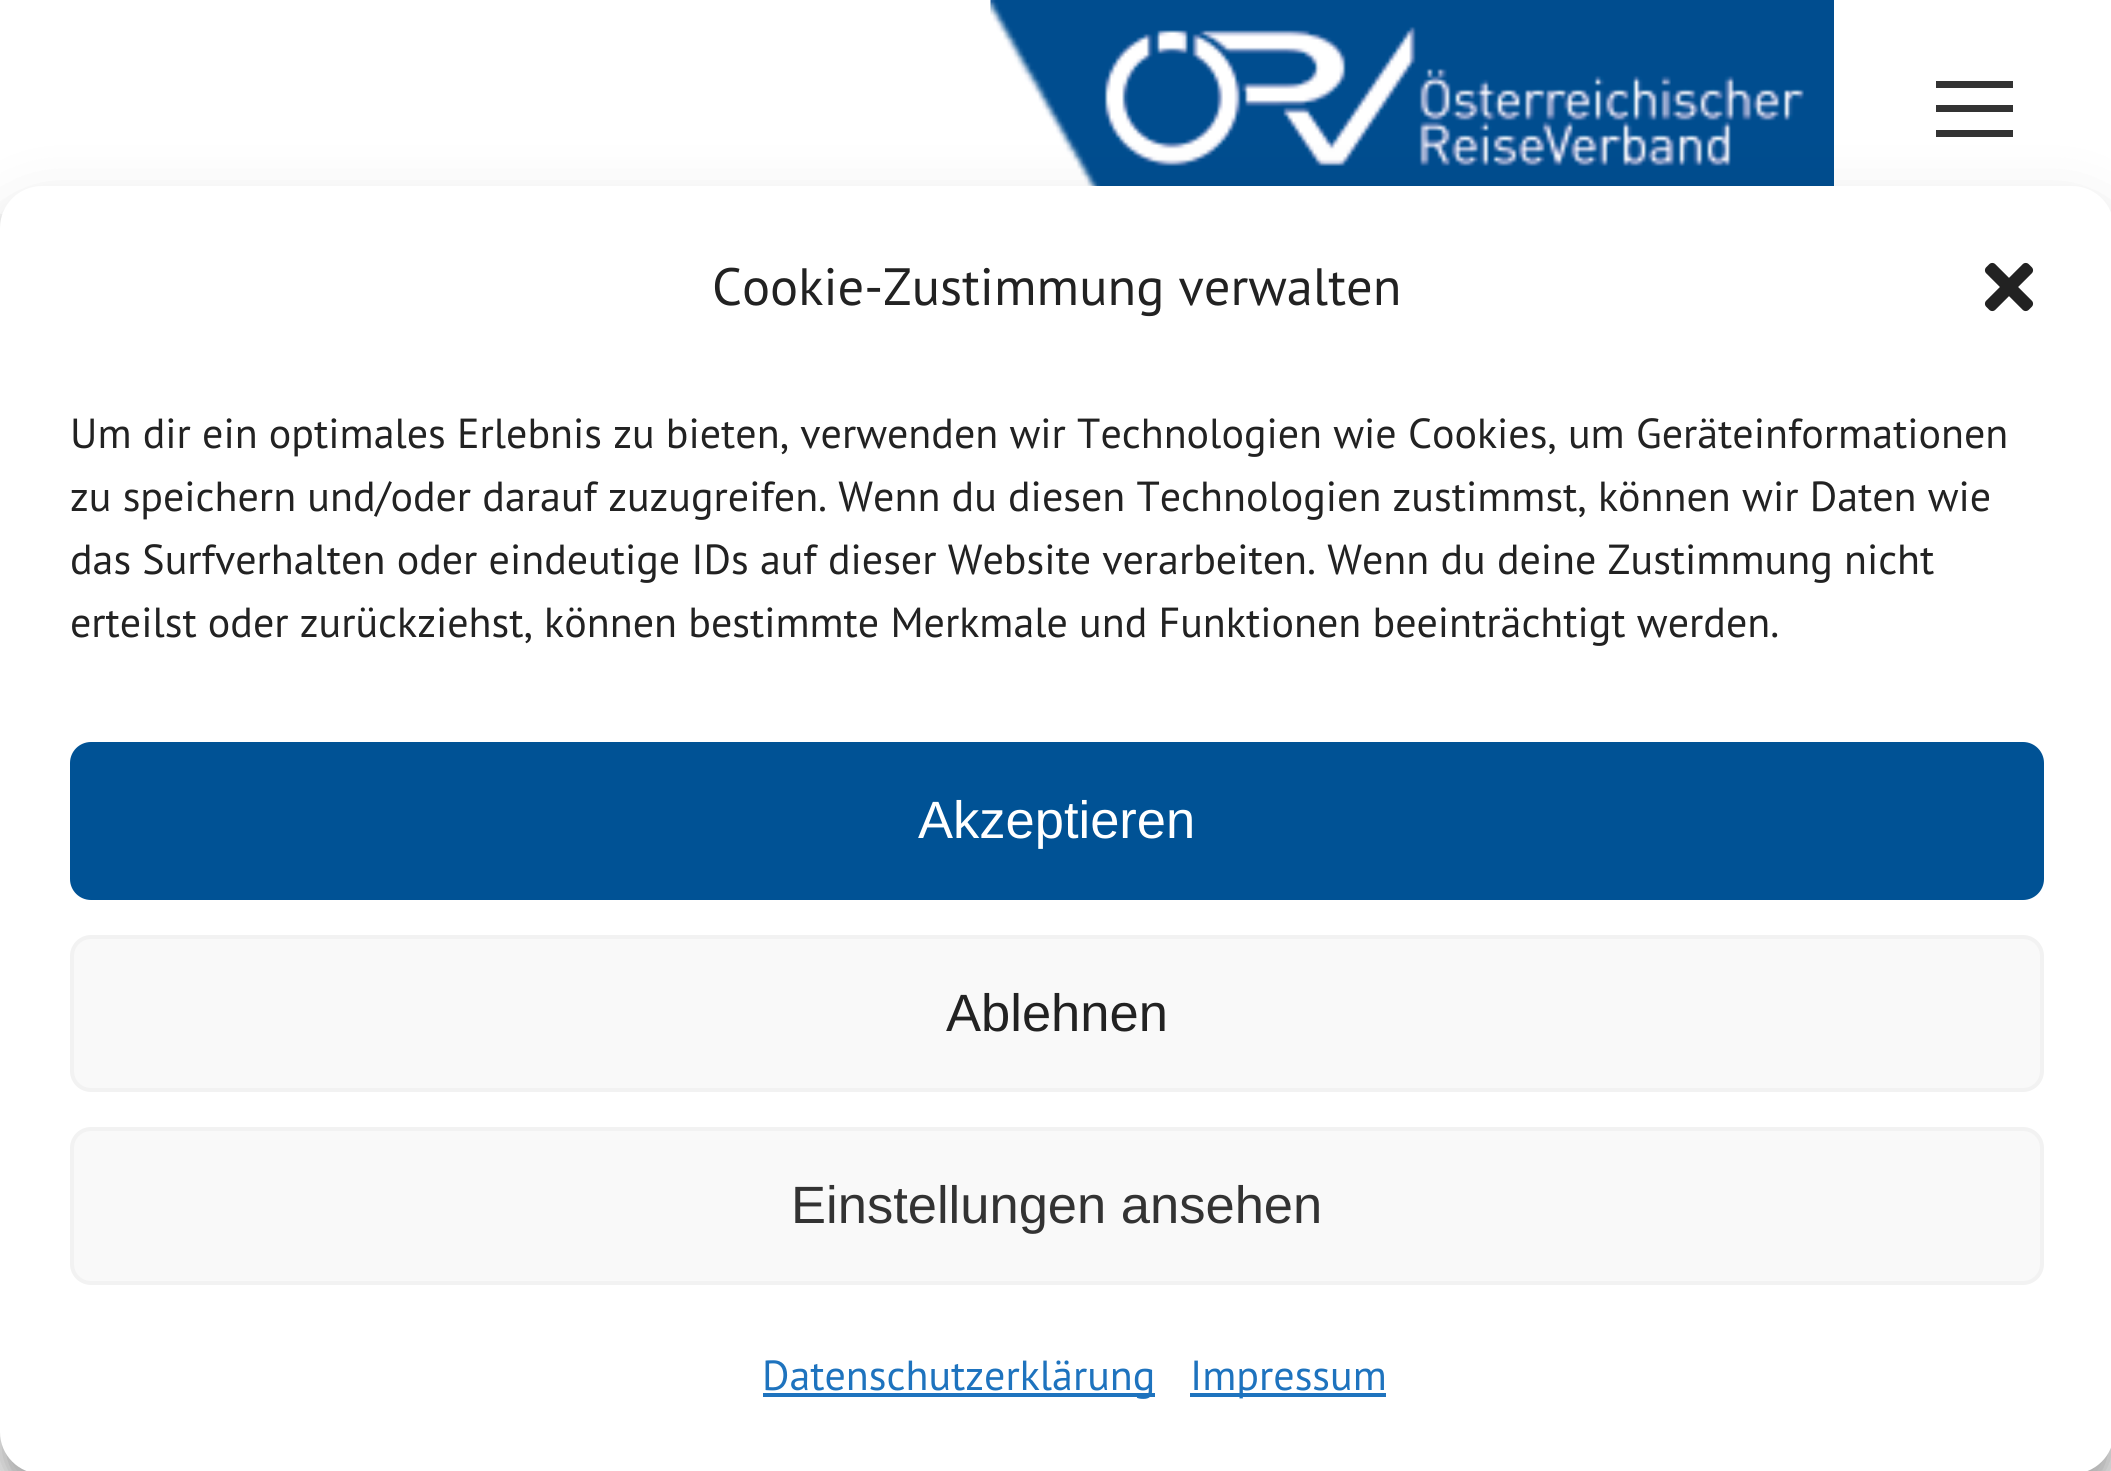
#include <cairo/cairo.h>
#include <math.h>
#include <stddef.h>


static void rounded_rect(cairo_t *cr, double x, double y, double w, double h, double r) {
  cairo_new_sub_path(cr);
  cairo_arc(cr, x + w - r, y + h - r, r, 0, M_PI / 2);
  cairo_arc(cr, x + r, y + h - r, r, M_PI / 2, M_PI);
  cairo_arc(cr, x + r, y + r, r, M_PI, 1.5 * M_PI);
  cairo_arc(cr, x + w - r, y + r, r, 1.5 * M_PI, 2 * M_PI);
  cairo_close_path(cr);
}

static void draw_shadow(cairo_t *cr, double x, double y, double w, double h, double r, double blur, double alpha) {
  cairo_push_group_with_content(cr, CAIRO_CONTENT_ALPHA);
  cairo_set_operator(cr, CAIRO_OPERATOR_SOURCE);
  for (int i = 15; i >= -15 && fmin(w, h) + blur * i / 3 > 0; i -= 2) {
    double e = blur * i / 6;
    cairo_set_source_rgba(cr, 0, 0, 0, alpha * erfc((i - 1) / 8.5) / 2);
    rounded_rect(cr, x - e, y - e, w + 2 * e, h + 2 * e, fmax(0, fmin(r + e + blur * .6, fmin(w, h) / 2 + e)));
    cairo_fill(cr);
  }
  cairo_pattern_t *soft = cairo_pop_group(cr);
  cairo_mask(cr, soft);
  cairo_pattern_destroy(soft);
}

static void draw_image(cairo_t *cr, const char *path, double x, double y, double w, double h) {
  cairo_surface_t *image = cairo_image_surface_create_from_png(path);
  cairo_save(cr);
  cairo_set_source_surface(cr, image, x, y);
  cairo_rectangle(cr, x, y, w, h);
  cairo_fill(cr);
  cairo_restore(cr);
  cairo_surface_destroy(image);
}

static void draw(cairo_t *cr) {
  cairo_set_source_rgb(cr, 1, 1, 1);
  cairo_paint(cr);
  cairo_set_source_rgb(cr, 0, 0, 0);
  draw_shadow(cr, -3, -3, 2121, 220, 0, 26, 0.07);
  cairo_set_source_rgb(cr, 1, 1, 1);
  cairo_rectangle(cr, 0, 0, 2111, 214);
  cairo_fill(cr);
  draw_image(cr, "images/1.png", 990, 0, 844, 186);
  cairo_set_source_rgb(cr, 51 / 255.0, 51 / 255.0, 51 / 255.0);
  cairo_rectangle(cr, 1936, 81, 77, 7);
  cairo_fill(cr);
  cairo_rectangle(cr, 1936, 105, 77, 7);
  cairo_fill(cr);
  cairo_rectangle(cr, 1936, 130, 77, 7);
  cairo_fill(cr);
  cairo_set_source_rgb(cr, 0, 0, 0);
  draw_shadow(cr, 0, 207, 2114, 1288, 42, 10.5, 0.23);
  draw_shadow(cr, 0, 221, 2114, 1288, 42, 35, 0.19);
  cairo_set_source_rgb(cr, 1, 1, 1);
  rounded_rect(cr, 0, 186, 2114, 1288, 42);
  cairo_fill(cr);
  draw_image(cr, "images/2.png", 1984, 262, 50, 50);
  cairo_set_source_rgb(cr, 0, 82 / 255.0, 149 / 255.0);
  rounded_rect(cr, 72, 744, 1970, 154, 19);
  cairo_fill_preserve(cr);
  cairo_set_line_width(cr, 4);
  cairo_stroke(cr);
  cairo_set_source_rgb(cr, 249 / 255.0, 249 / 255.0, 249 / 255.0);
  rounded_rect(cr, 72, 937, 1970, 153, 19);
  cairo_fill_preserve(cr);
  cairo_set_source_rgb(cr, 242 / 255.0, 242 / 255.0, 242 / 255.0);
  cairo_stroke(cr);
  cairo_set_source_rgb(cr, 249 / 255.0, 249 / 255.0, 249 / 255.0);
  rounded_rect(cr, 72, 1129, 1970, 154, 19);
  cairo_fill_preserve(cr);
  cairo_set_source_rgb(cr, 242 / 255.0, 242 / 255.0, 242 / 255.0);
  cairo_stroke(cr);
  cairo_set_source_rgb(cr, 30 / 255.0, 115 / 255.0, 190 / 255.0);
  cairo_rectangle(cr, 763, 1393, 392, 4);
  cairo_fill(cr);
  cairo_rectangle(cr, 1190, 1393, 196, 4);
  cairo_fill(cr);
  cairo_select_font_face(cr, "PT Sans", CAIRO_FONT_SLANT_NORMAL, CAIRO_FONT_WEIGHT_NORMAL);
  cairo_set_font_size(cr, 52.5);
  cairo_set_source_rgb(cr, 34 / 255.0, 34 / 255.0, 34 / 255.0);
  cairo_move_to(cr, 712, 305);
  cairo_show_text(cr, "Cookie-Zustimmung verwalten");
  cairo_set_font_size(cr, 42);
  cairo_move_to(cr, 70, 448);
  cairo_show_text(cr, "Um dir ein optimales Erlebnis zu bieten, verwenden wir Technologien wie Cookies, um Geräteinformationen");
  cairo_move_to(cr, 70, 511);
  cairo_show_text(cr, "zu speichern und/oder darauf zuzugreifen. Wenn du diesen Technologien zustimmst, können wir Daten wie");
  cairo_move_to(cr, 70, 574);
  cairo_show_text(cr, "das Surfverhalten oder eindeutige IDs auf dieser Website verarbeiten. Wenn du deine Zustimmung nicht");
  cairo_move_to(cr, 70, 637);
  cairo_show_text(cr, "erteilst oder zurückziehst, können bestimmte Merkmale und Funktionen beeinträchtigt werden.");
  cairo_select_font_face(cr, "Liberation Sans", CAIRO_FONT_SLANT_NORMAL, CAIRO_FONT_WEIGHT_NORMAL);
  cairo_set_font_size(cr, 52.5);
  cairo_set_source_rgb(cr, 1, 1, 1);
  cairo_move_to(cr, 918, 838);
  cairo_show_text(cr, "Akzeptieren");
  cairo_set_source_rgb(cr, 34 / 255.0, 34 / 255.0, 34 / 255.0);
  cairo_move_to(cr, 946, 1031);
  cairo_show_text(cr, "Ablehnen");
  cairo_set_source_rgb(cr, 51 / 255.0, 51 / 255.0, 51 / 255.0);
  cairo_move_to(cr, 791, 1223);
  cairo_show_text(cr, "Einstellungen ansehen");
  cairo_select_font_face(cr, "PT Sans", CAIRO_FONT_SLANT_NORMAL, CAIRO_FONT_WEIGHT_NORMAL);
  cairo_set_font_size(cr, 42);
  cairo_set_source_rgb(cr, 30 / 255.0, 115 / 255.0, 190 / 255.0);
  cairo_move_to(cr, 762, 1390);
  cairo_show_text(cr, "Datenschutzerklärung");
  cairo_move_to(cr, 1190, 1390);
  cairo_show_text(cr, "Impressum");
}

int main(void) {
  cairo_surface_t *surface = cairo_image_surface_create(CAIRO_FORMAT_RGB24, 2111, 1471);
  cairo_t *cr = cairo_create(surface);
  cairo_font_options_t *options = cairo_font_options_create();
  cairo_font_options_set_hint_metrics(options, CAIRO_HINT_METRICS_OFF);
  cairo_font_options_set_hint_style(options, CAIRO_HINT_STYLE_NONE);
  cairo_set_font_options(cr, options);
  cairo_set_miter_limit(cr, 4);
  draw(cr);
  cairo_surface_write_to_png(surface, "out.png");
  cairo_font_options_destroy(options);
  cairo_destroy(cr);
  cairo_surface_destroy(surface);
  return 0;
}
